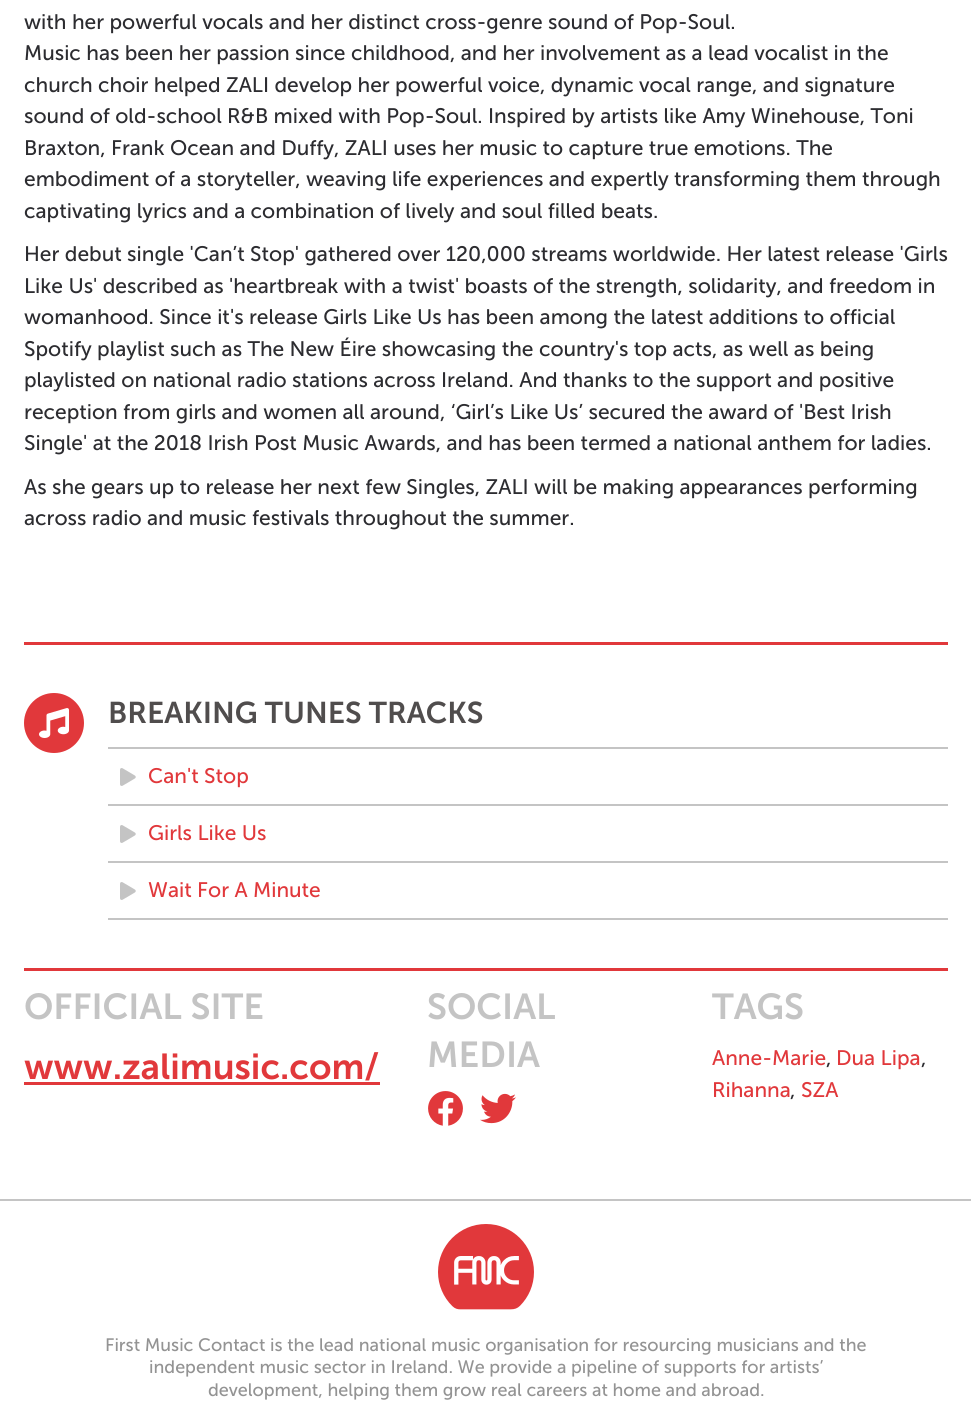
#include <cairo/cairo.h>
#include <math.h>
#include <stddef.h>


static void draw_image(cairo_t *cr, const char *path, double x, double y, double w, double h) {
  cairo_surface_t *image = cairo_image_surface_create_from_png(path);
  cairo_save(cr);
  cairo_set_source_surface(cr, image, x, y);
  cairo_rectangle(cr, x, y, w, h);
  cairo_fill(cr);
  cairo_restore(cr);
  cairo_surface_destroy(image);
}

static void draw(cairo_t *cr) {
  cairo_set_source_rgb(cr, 1, 1, 1);
  cairo_paint(cr);
  cairo_set_source_rgb(cr, 225 / 255.0, 56 / 255.0, 59 / 255.0);
  cairo_rectangle(cr, 24, 642, 924, 3);
  cairo_fill(cr);
  cairo_arc(cr, 54, 723, 30, 0, 2 * M_PI);
  cairo_fill(cr);
  draw_image(cr, "images/1.png", 39, 708, 30, 30);
  cairo_set_source_rgb(cr, 196 / 255.0, 196 / 255.0, 196 / 255.0);
  cairo_rectangle(cr, 108, 747, 840, 2);
  cairo_fill(cr);
  cairo_rectangle(cr, 108, 918, 840, 2);
  cairo_fill(cr);
  draw_image(cr, "images/2.png", 120, 768, 16, 18);
  cairo_rectangle(cr, 108, 804, 840, 2);
  cairo_fill(cr);
  draw_image(cr, "images/2.png", 120, 825, 16, 18);
  cairo_rectangle(cr, 108, 861, 840, 2);
  cairo_fill(cr);
  draw_image(cr, "images/2.png", 120, 882, 16, 18);
  cairo_set_source_rgb(cr, 225 / 255.0, 56 / 255.0, 59 / 255.0);
  cairo_rectangle(cr, 24, 968, 924, 3);
  cairo_fill(cr);
  cairo_rectangle(cr, 24, 1082, 356, 3);
  cairo_fill(cr);
  draw_image(cr, "images/3.png", 428, 1091, 35, 35);
  draw_image(cr, "images/4.png", 480, 1093, 36, 31);
  cairo_set_source_rgb(cr, 196 / 255.0, 196 / 255.0, 196 / 255.0);
  cairo_rectangle(cr, 0, 1199, 971, 2);
  cairo_fill(cr);
  draw_image(cr, "images/5.png", 438, 1224, 96, 86);
  cairo_select_font_face(cr, "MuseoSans", CAIRO_FONT_SLANT_NORMAL, CAIRO_FONT_WEIGHT_NORMAL);
  cairo_set_font_size(cr, 21);
  cairo_set_source_rgb(cr, 44 / 255.0, 44 / 255.0, 48 / 255.0);
  cairo_move_to(cr, 24, 29);
  cairo_show_text(cr, "with her powerful vocals and her distinct cross-genre sound of Pop-Soul.");
  cairo_move_to(cr, 24, 60);
  cairo_show_text(cr, "Music has been her passion since childhood, and her involvement as a lead vocalist in the");
  cairo_move_to(cr, 24, 92);
  cairo_show_text(cr, "church choir helped ZALI develop her powerful voice, dynamic vocal range, and signature");
  cairo_move_to(cr, 24, 123);
  cairo_show_text(cr, "sound of old-school R&B mixed with Pop-Soul. Inspired by artists like Amy Winehouse, Toni");
  cairo_move_to(cr, 24, 155);
  cairo_show_text(cr, "Braxton, Frank Ocean and Duffy, ZALI uses her music to capture true emotions. The");
  cairo_move_to(cr, 24, 186);
  cairo_show_text(cr, "embodiment of a storyteller, weaving life experiences and expertly transforming them through");
  cairo_move_to(cr, 24, 218);
  cairo_show_text(cr, "captivating lyrics and a combination of lively and soul filled beats.");
  cairo_move_to(cr, 24, 261);
  cairo_show_text(cr, "Her debut single 'Can’t Stop' gathered over 120,000 streams worldwide. Her latest release 'Girls");
  cairo_move_to(cr, 24, 293);
  cairo_show_text(cr, "Like Us' described as 'heartbreak with a twist' boasts of the strength, solidarity, and freedom in");
  cairo_move_to(cr, 24, 324);
  cairo_show_text(cr, "womanhood. Since it's release Girls Like Us has been among the latest additions to official");
  cairo_move_to(cr, 24, 356);
  cairo_show_text(cr, "Spotify playlist such as The New Éire showcasing the country's top acts, as well as being");
  cairo_move_to(cr, 24, 387);
  cairo_show_text(cr, "playlisted on national radio stations across Ireland. And thanks to the support and positive");
  cairo_move_to(cr, 24, 419);
  cairo_show_text(cr, "reception from girls and women all around, ‘Girl’s Like Us’ secured the award of 'Best Irish");
  cairo_move_to(cr, 24, 450);
  cairo_show_text(cr, "Single' at the 2018 Irish Post Music Awards, and has been termed a national anthem for ladies.");
  cairo_move_to(cr, 24, 494);
  cairo_show_text(cr, "As she gears up to release her next few Singles, ZALI will be making appearances performing");
  cairo_move_to(cr, 24, 525);
  cairo_show_text(cr, "across radio and music festivals throughout the summer.");
  cairo_select_font_face(cr, "MuseoSans SemiBold", CAIRO_FONT_SLANT_NORMAL, CAIRO_FONT_WEIGHT_NORMAL);
  cairo_set_font_size(cr, 30);
  cairo_set_source_rgb(cr, 80 / 255.0, 77 / 255.0, 77 / 255.0);
  cairo_move_to(cr, 108, 723);
  cairo_show_text(cr, "BREAKING TUNES TRACKS");
  cairo_select_font_face(cr, "MuseoSans", CAIRO_FONT_SLANT_NORMAL, CAIRO_FONT_WEIGHT_NORMAL);
  cairo_set_font_size(cr, 21);
  cairo_set_source_rgb(cr, 225 / 255.0, 56 / 255.0, 59 / 255.0);
  cairo_move_to(cr, 148, 783);
  cairo_show_text(cr, "Can't Stop");
  cairo_move_to(cr, 148, 840);
  cairo_show_text(cr, "Girls Like Us");
  cairo_move_to(cr, 148, 897);
  cairo_show_text(cr, "Wait For A Minute");
  cairo_select_font_face(cr, "MuseoSans SemiBold", CAIRO_FONT_SLANT_NORMAL, CAIRO_FONT_WEIGHT_NORMAL);
  cairo_set_font_size(cr, 36);
  cairo_set_source_rgb(cr, 196 / 255.0, 196 / 255.0, 196 / 255.0);
  cairo_move_to(cr, 24, 1019);
  cairo_show_text(cr, "OFFICIAL SITE");
  cairo_set_source_rgb(cr, 225 / 255.0, 56 / 255.0, 59 / 255.0);
  cairo_move_to(cr, 24, 1079);
  cairo_show_text(cr, "www.zalimusic.com/");
  cairo_set_source_rgb(cr, 196 / 255.0, 196 / 255.0, 196 / 255.0);
  cairo_move_to(cr, 427, 1019);
  cairo_show_text(cr, "SOCIAL");
  cairo_move_to(cr, 427, 1067);
  cairo_show_text(cr, "MEDIA");
  cairo_move_to(cr, 712, 1019);
  cairo_show_text(cr, "TAGS");
  cairo_select_font_face(cr, "MuseoSans", CAIRO_FONT_SLANT_NORMAL, CAIRO_FONT_WEIGHT_NORMAL);
  cairo_set_font_size(cr, 21);
  cairo_set_source_rgb(cr, 225 / 255.0, 56 / 255.0, 59 / 255.0);
  cairo_move_to(cr, 712, 1065);
  cairo_show_text(cr, "Anne-Marie");
  cairo_set_source_rgb(cr, 44 / 255.0, 44 / 255.0, 48 / 255.0);
  cairo_move_to(cr, 826, 1065);
  cairo_show_text(cr, ",");
  cairo_set_source_rgb(cr, 225 / 255.0, 56 / 255.0, 59 / 255.0);
  cairo_move_to(cr, 836, 1065);
  cairo_show_text(cr, "Dua Lipa");
  cairo_set_source_rgb(cr, 44 / 255.0, 44 / 255.0, 48 / 255.0);
  cairo_move_to(cr, 921, 1065);
  cairo_show_text(cr, ",");
  cairo_set_source_rgb(cr, 225 / 255.0, 56 / 255.0, 59 / 255.0);
  cairo_move_to(cr, 712, 1097);
  cairo_show_text(cr, "Rihanna");
  cairo_set_source_rgb(cr, 44 / 255.0, 44 / 255.0, 48 / 255.0);
  cairo_move_to(cr, 790, 1097);
  cairo_show_text(cr, ",");
  cairo_set_source_rgb(cr, 225 / 255.0, 56 / 255.0, 59 / 255.0);
  cairo_move_to(cr, 801, 1097);
  cairo_show_text(cr, "SZA");
  cairo_set_font_size(cr, 18);
  cairo_set_source_rgb(cr, 147 / 255.0, 147 / 255.0, 147 / 255.0);
  cairo_move_to(cr, 105, 1351);
  cairo_show_text(cr, "First Music Contact is the lead national music organisation for resourcing musicians and the");
  cairo_move_to(cr, 149, 1373);
  cairo_show_text(cr, "independent music sector in Ireland. We provide a pipeline of supports for artists’");
  cairo_move_to(cr, 208, 1396);
  cairo_show_text(cr, "development, helping them grow real careers at home and abroad.");
}

int main(void) {
  cairo_surface_t *surface = cairo_image_surface_create(CAIRO_FORMAT_RGB24, 971, 1406);
  cairo_t *cr = cairo_create(surface);
  cairo_font_options_t *options = cairo_font_options_create();
  cairo_font_options_set_hint_metrics(options, CAIRO_HINT_METRICS_OFF);
  cairo_font_options_set_hint_style(options, CAIRO_HINT_STYLE_NONE);
  cairo_set_font_options(cr, options);
  cairo_set_miter_limit(cr, 4);
  draw(cr);
  cairo_surface_write_to_png(surface, "out.png");
  cairo_font_options_destroy(options);
  cairo_destroy(cr);
  cairo_surface_destroy(surface);
  return 0;
}
